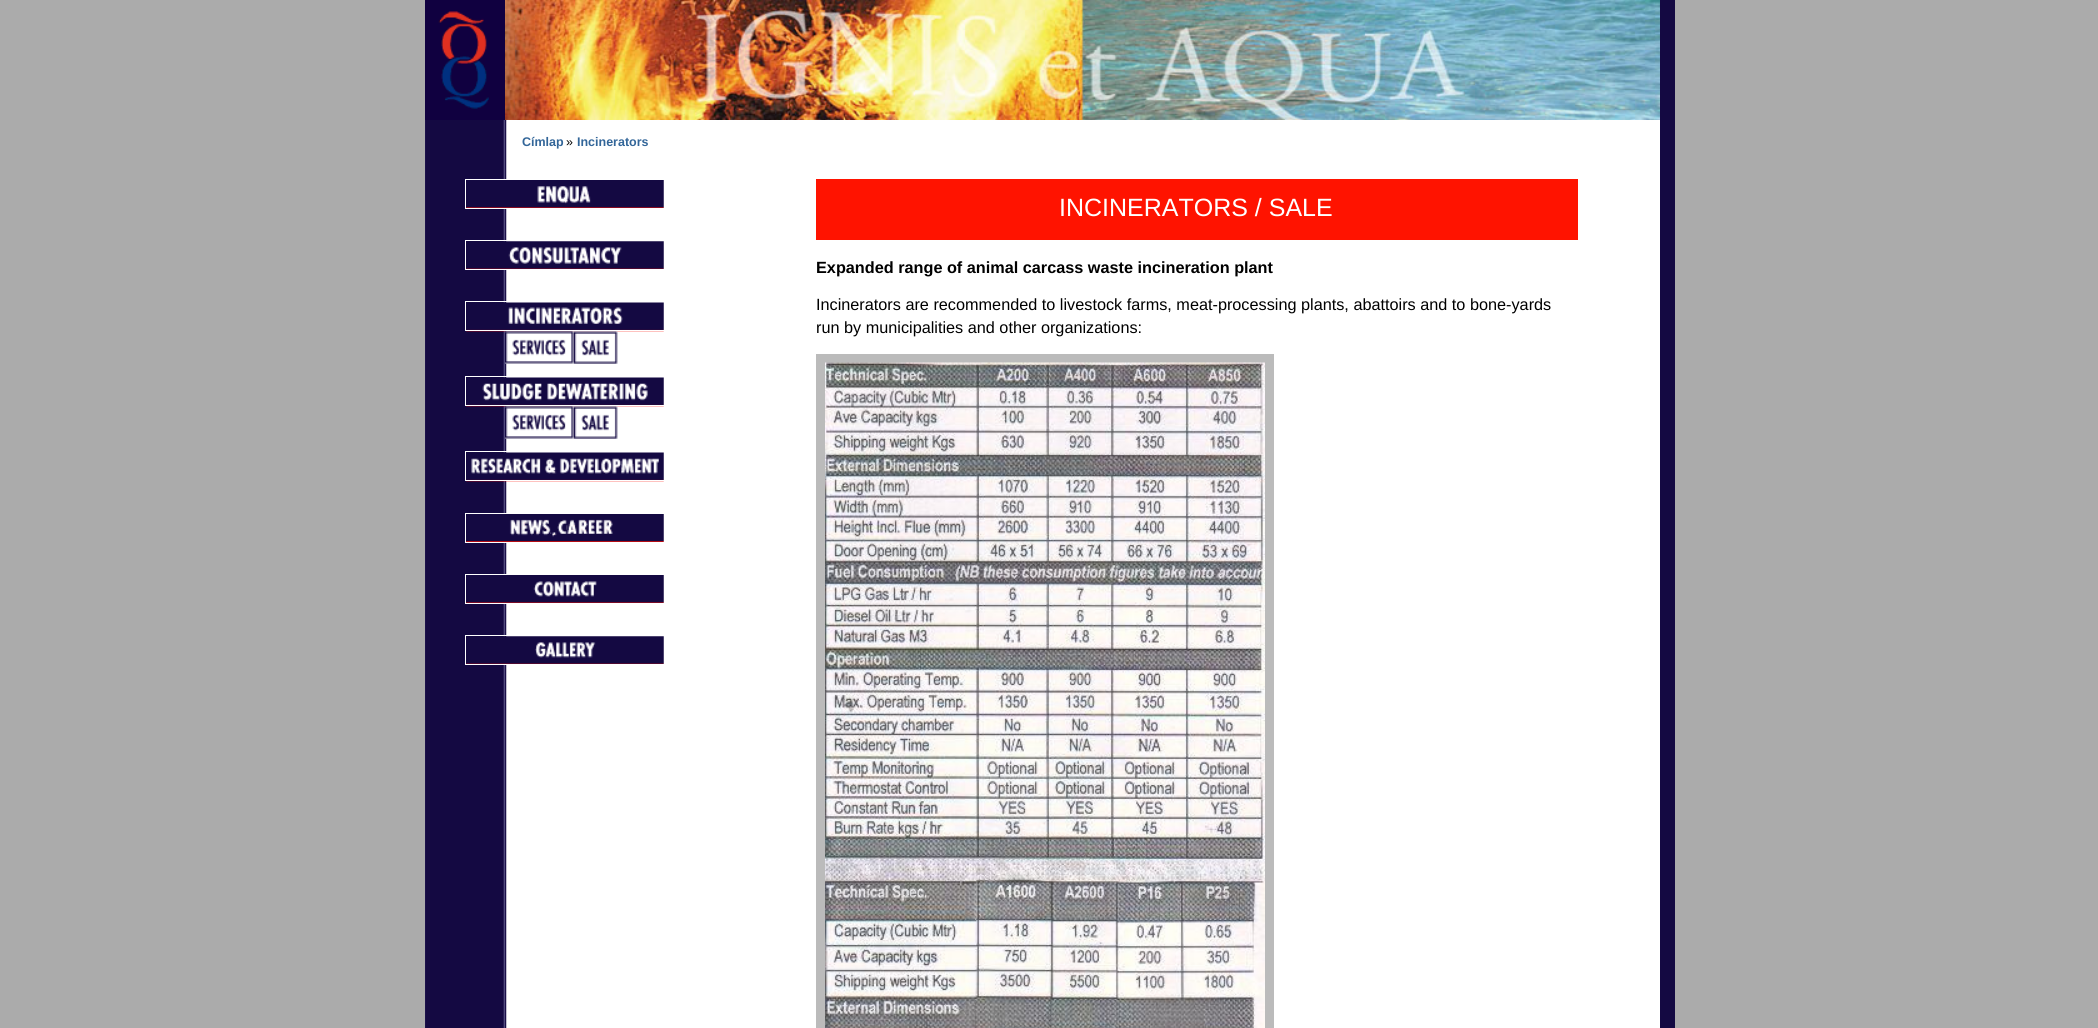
#include <cairo/cairo.h>
#include <math.h>
#include <stddef.h>


static void draw_image(cairo_t *cr, const char *path, double x, double y, double w, double h) {
  cairo_surface_t *image = cairo_image_surface_create_from_png(path);
  cairo_save(cr);
  cairo_set_source_surface(cr, image, x, y);
  cairo_rectangle(cr, x, y, w, h);
  cairo_fill(cr);
  cairo_restore(cr);
  cairo_surface_destroy(image);
}

static void draw(cairo_t *cr) {
  cairo_set_source_rgb(cr, 171 / 255.0, 171 / 255.0, 171 / 255.0);
  cairo_paint(cr);
  cairo_set_source_rgb(cr, 1, 1, 1);
  cairo_rectangle(cr, 506, 120, 1154, 908);
  cairo_fill(cr);
  cairo_set_source_rgb(cr, 20 / 255.0, 9 / 255.0, 66 / 255.0);
  cairo_rectangle(cr, 1660, 0, 15, 1028);
  cairo_fill(cr);
  draw_image(cr, "images/1.png", 425, 0, 80, 120);
  draw_image(cr, "images/2.png", 505, 0, 1155, 120);
  draw_image(cr, "images/3.png", 425, 120, 82, 908);
  draw_image(cr, "images/4.png", 466, 180, 198, 28);
  cairo_rectangle(cr, 465.5, 179.5, 199, 29);
  cairo_set_source_rgb(cr, 1, 1, 1);
  cairo_set_line_width(cr, 1);
  cairo_stroke(cr);
  draw_image(cr, "images/5.png", 466, 241, 198, 28);
  cairo_rectangle(cr, 465.5, 240.5, 199, 29);
  cairo_stroke(cr);
  draw_image(cr, "images/6.png", 466, 302, 198, 30);
  cairo_rectangle(cr, 465.5, 301.5, 199, 29);
  cairo_stroke(cr);
  draw_image(cr, "images/7.png", 505, 331, 69, 33);
  draw_image(cr, "images/8.png", 573, 331, 45, 33);
  draw_image(cr, "images/9.png", 466, 377, 198, 30);
  cairo_rectangle(cr, 465.5, 376.5, 199, 29);
  cairo_stroke(cr);
  draw_image(cr, "images/7.png", 505, 406, 69, 33);
  draw_image(cr, "images/8.png", 573, 406, 45, 33);
  draw_image(cr, "images/10.png", 466, 452, 198, 30);
  cairo_rectangle(cr, 465.5, 451.5, 199, 29);
  cairo_stroke(cr);
  draw_image(cr, "images/11.png", 466, 514, 198, 28);
  cairo_rectangle(cr, 465.5, 513.5, 199, 29);
  cairo_stroke(cr);
  draw_image(cr, "images/12.png", 466, 575, 198, 28);
  cairo_rectangle(cr, 465.5, 574.5, 199, 29);
  cairo_stroke(cr);
  draw_image(cr, "images/13.png", 466, 636, 198, 28);
  cairo_rectangle(cr, 465.5, 635.5, 199, 29);
  cairo_stroke(cr);
  cairo_set_source_rgb(cr, 1, 19 / 255.0, 0);
  cairo_rectangle(cr, 816, 179, 762, 61);
  cairo_fill(cr);
  cairo_rectangle(cr, 820.5, 358.5, 449, 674);
  cairo_set_source_rgb(cr, 187 / 255.0, 187 / 255.0, 187 / 255.0);
  cairo_set_line_width(cr, 9);
  cairo_stroke(cr);
  draw_image(cr, "images/14.png", 825, 362, 440, 666);
  cairo_select_font_face(cr, "Liberation Sans", CAIRO_FONT_SLANT_NORMAL, CAIRO_FONT_WEIGHT_BOLD);
  cairo_set_font_size(cr, 12.5);
  cairo_set_source_rgb(cr, 51 / 255.0, 102 / 255.0, 153 / 255.0);
  cairo_move_to(cr, 522, 146);
  cairo_show_text(cr, "Címlap");
  cairo_select_font_face(cr, "Liberation Sans", CAIRO_FONT_SLANT_NORMAL, CAIRO_FONT_WEIGHT_NORMAL);
  cairo_set_source_rgb(cr, 0, 0, 0);
  cairo_move_to(cr, 566, 146);
  cairo_show_text(cr, "»");
  cairo_select_font_face(cr, "Liberation Sans", CAIRO_FONT_SLANT_NORMAL, CAIRO_FONT_WEIGHT_BOLD);
  cairo_set_source_rgb(cr, 51 / 255.0, 102 / 255.0, 153 / 255.0);
  cairo_move_to(cr, 577, 146);
  cairo_show_text(cr, "Incinerators");
  cairo_select_font_face(cr, "Liberation Sans", CAIRO_FONT_SLANT_NORMAL, CAIRO_FONT_WEIGHT_NORMAL);
  cairo_set_font_size(cr, 25);
  cairo_set_source_rgb(cr, 1, 1, 1);
  cairo_move_to(cr, 1059, 216);
  cairo_show_text(cr, "INCINERATORS / SALE");
  cairo_select_font_face(cr, "Liberation Sans", CAIRO_FONT_SLANT_NORMAL, CAIRO_FONT_WEIGHT_BOLD);
  cairo_set_font_size(cr, 16.25);
  cairo_set_source_rgb(cr, 0, 0, 0);
  cairo_move_to(cr, 816, 273);
  cairo_show_text(cr, "Expanded range of animal carcass waste incineration plant");
  cairo_select_font_face(cr, "Liberation Sans", CAIRO_FONT_SLANT_NORMAL, CAIRO_FONT_WEIGHT_NORMAL);
  cairo_move_to(cr, 816, 310);
  cairo_show_text(cr, "Incinerators are recommended to livestock farms, meat-processing plants, abattoirs and to bone-yards");
  cairo_move_to(cr, 816, 333);
  cairo_show_text(cr, "run by municipalities and other organizations:");
}

int main(void) {
  cairo_surface_t *surface = cairo_image_surface_create(CAIRO_FORMAT_RGB24, 2098, 1028);
  cairo_t *cr = cairo_create(surface);
  cairo_font_options_t *options = cairo_font_options_create();
  cairo_font_options_set_hint_metrics(options, CAIRO_HINT_METRICS_OFF);
  cairo_font_options_set_hint_style(options, CAIRO_HINT_STYLE_NONE);
  cairo_set_font_options(cr, options);
  cairo_set_miter_limit(cr, 4);
  draw(cr);
  cairo_surface_write_to_png(surface, "out.png");
  cairo_font_options_destroy(options);
  cairo_destroy(cr);
  cairo_surface_destroy(surface);
  return 0;
}
